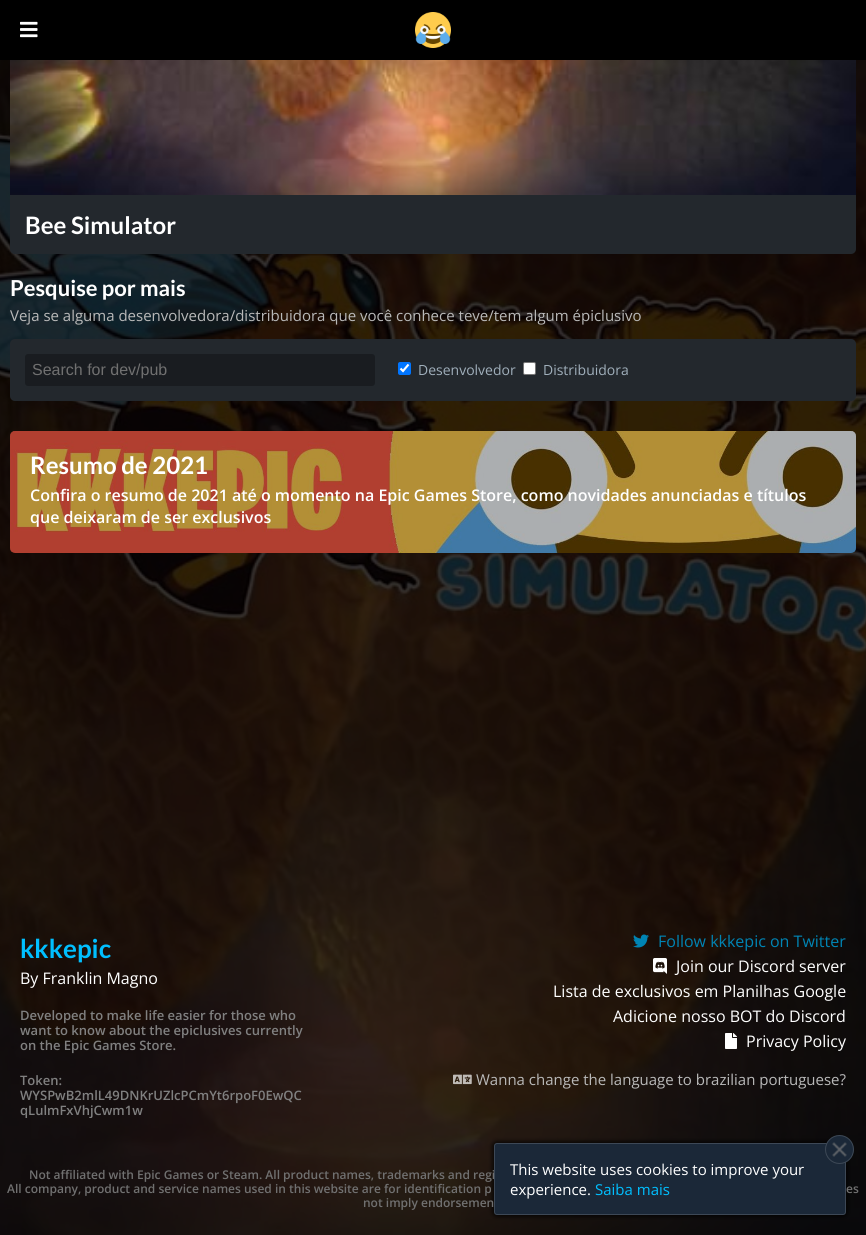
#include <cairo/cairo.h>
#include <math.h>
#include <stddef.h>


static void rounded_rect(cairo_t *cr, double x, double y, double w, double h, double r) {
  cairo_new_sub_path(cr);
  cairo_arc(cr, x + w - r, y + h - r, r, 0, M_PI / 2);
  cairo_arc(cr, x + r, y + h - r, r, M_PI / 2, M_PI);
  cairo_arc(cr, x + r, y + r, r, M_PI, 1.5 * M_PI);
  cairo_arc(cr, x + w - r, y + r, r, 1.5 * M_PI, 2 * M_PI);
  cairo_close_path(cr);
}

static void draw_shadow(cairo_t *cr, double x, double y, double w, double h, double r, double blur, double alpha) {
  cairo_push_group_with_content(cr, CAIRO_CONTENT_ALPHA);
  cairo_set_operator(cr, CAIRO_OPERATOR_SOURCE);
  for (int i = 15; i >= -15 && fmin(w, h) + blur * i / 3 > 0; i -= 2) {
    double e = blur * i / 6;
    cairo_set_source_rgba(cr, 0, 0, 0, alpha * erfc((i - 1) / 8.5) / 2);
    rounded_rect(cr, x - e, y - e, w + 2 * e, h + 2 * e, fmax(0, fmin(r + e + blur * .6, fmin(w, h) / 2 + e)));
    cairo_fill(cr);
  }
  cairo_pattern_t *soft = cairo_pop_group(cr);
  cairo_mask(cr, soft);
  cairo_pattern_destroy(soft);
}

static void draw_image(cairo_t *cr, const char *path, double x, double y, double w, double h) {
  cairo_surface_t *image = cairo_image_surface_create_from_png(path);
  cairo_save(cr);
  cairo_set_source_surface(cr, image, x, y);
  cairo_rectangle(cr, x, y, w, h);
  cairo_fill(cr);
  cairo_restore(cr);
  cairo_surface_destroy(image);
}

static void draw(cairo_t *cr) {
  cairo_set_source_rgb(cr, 1, 1, 1);
  cairo_paint(cr);
  draw_image(cr, "images/1.png", 0, 60, 866, 1175);
  cairo_set_source_rgb(cr, 35 / 255.0, 40 / 255.0, 45 / 255.0);
  rounded_rect(cr, 10, -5, 846, 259, 5);
  cairo_fill(cr);
  cairo_set_source_rgb(cr, 0, 0, 0);
  cairo_rectangle(cr, 0, 0, 866, 60);
  cairo_fill(cr);
  draw_image(cr, "images/2.png", 20, 21, 18, 17);
  draw_image(cr, "images/3.png", 415, 12, 36, 36);
  draw_image(cr, "images/4.png", 10, 60, 846, 135);
  cairo_set_source_rgb(cr, 35 / 255.0, 40 / 255.0, 45 / 255.0);
  rounded_rect(cr, 10, 339, 846, 62, 5);
  cairo_fill(cr);
  cairo_set_source_rgb(cr, 25 / 255.0, 28 / 255.0, 32 / 255.0);
  rounded_rect(cr, 25, 354, 350, 32, 3);
  cairo_fill(cr);
  cairo_set_source_rgb(cr, 0, 117 / 255.0, 1);
  rounded_rect(cr, 398, 362, 13, 13, 2);
  cairo_fill(cr);
  cairo_new_path(cr);
  cairo_move_to(cr, 400.5, 368.5);
  cairo_line_to(cr, 403, 371);
  cairo_line_to(cr, 408.5, 364.5);
  cairo_set_source_rgb(cr, 1, 1, 1);
  cairo_set_line_width(cr, 2.1);
  cairo_stroke(cr);
  rounded_rect(cr, 523.5, 362.5, 12, 12, 1.5);
  cairo_fill_preserve(cr);
  cairo_set_source_rgb(cr, 118 / 255.0, 118 / 255.0, 118 / 255.0);
  cairo_set_line_width(cr, 1);
  cairo_stroke(cr);
  draw_image(cr, "images/5.png", 10, 431, 846, 122);
  cairo_set_source_rgba(cr, 0, 0, 0, 0.3);
  rounded_rect(cr, 10, 431, 846, 122, 5);
  cairo_fill(cr);
  draw_image(cr, "images/6.png", 633, 934, 16, 14);
  draw_image(cr, "images/7.png", 653, 958, 14, 16);
  draw_image(cr, "images/8.png", 725, 1033, 12, 16);
  draw_image(cr, "images/9.png", 453, 1074, 19, 11);
  cairo_set_source_rgb(cr, 0, 0, 0);
  draw_shadow(cr, 492, 1141, 356, 76, 5, 2, 0.7);
  cairo_select_font_face(cr, "Lato", CAIRO_FONT_SLANT_NORMAL, CAIRO_FONT_WEIGHT_BOLD);
  cairo_set_font_size(cr, 24);
  cairo_set_source_rgb(cr, 1, 1, 1);
  cairo_move_to(cr, 25, 234);
  cairo_show_text(cr, "Bee Simulator");
  cairo_set_font_size(cr, 22);
  cairo_move_to(cr, 10, 296);
  cairo_show_text(cr, "Pesquise por mais");
  cairo_select_font_face(cr, "Open Sans", CAIRO_FONT_SLANT_NORMAL, CAIRO_FONT_WEIGHT_NORMAL);
  cairo_set_font_size(cr, 15);
  cairo_set_source_rgb(cr, 185 / 255.0, 185 / 255.0, 185 / 255.0);
  cairo_move_to(cr, 10, 321);
  cairo_show_text(cr, "Veja se alguma desenvolvedora/distribuidora que você conhece teve/tem algum épiclusivo");
  cairo_select_font_face(cr, "Liberation Sans", CAIRO_FONT_SLANT_NORMAL, CAIRO_FONT_WEIGHT_NORMAL);
  cairo_set_font_size(cr, 16);
  cairo_set_source_rgb(cr, 112 / 255.0, 112 / 255.0, 112 / 255.0);
  cairo_move_to(cr, 32, 375);
  cairo_show_text(cr, "Search for dev/pub");
  cairo_select_font_face(cr, "Open Sans", CAIRO_FONT_SLANT_NORMAL, CAIRO_FONT_WEIGHT_NORMAL);
  cairo_set_font_size(cr, 14);
  cairo_set_source_rgb(cr, 160 / 255.0, 175 / 255.0, 187 / 255.0);
  cairo_move_to(cr, 418, 375);
  cairo_show_text(cr, "Desenvolvedor");
  cairo_move_to(cr, 543, 375);
  cairo_show_text(cr, "Distribuidora");
  cairo_select_font_face(cr, "Lato", CAIRO_FONT_SLANT_NORMAL, CAIRO_FONT_WEIGHT_BOLD);
  cairo_set_font_size(cr, 24);
  cairo_set_source_rgb(cr, 1, 1, 1);
  cairo_move_to(cr, 30, 474);
  cairo_show_text(cr, "Resumo de 2021");
  cairo_select_font_face(cr, "Open Sans SemiBold", CAIRO_FONT_SLANT_NORMAL, CAIRO_FONT_WEIGHT_NORMAL);
  cairo_set_font_size(cr, 16);
  cairo_move_to(cr, 30, 501);
  cairo_show_text(cr, "Confira o resumo de 2021 até o momento na Epic Games Store, como novidades anunciadas e títulos");
  cairo_move_to(cr, 30, 523);
  cairo_show_text(cr, "que deixaram de ser exclusivos");
  cairo_select_font_face(cr, "Lato", CAIRO_FONT_SLANT_NORMAL, CAIRO_FONT_WEIGHT_BOLD);
  cairo_set_font_size(cr, 26);
  cairo_set_source_rgb(cr, 0, 191 / 255.0, 1);
  cairo_move_to(cr, 20, 958);
  cairo_show_text(cr, "kkkepic");
  cairo_select_font_face(cr, "Open Sans", CAIRO_FONT_SLANT_NORMAL, CAIRO_FONT_WEIGHT_NORMAL);
  cairo_set_font_size(cr, 16);
  cairo_set_source_rgb(cr, 1, 1, 1);
  cairo_move_to(cr, 20, 984);
  cairo_show_text(cr, "By Franklin Magno");
  cairo_select_font_face(cr, "Open Sans SemiBold", CAIRO_FONT_SLANT_NORMAL, CAIRO_FONT_WEIGHT_NORMAL);
  cairo_set_font_size(cr, 13);
  cairo_set_source_rgb(cr, 128 / 255.0, 128 / 255.0, 128 / 255.0);
  cairo_move_to(cr, 20, 1020);
  cairo_show_text(cr, "Developed to make life easier for those who");
  cairo_move_to(cr, 20, 1035);
  cairo_show_text(cr, "want to know about the epiclusives currently");
  cairo_move_to(cr, 20, 1050);
  cairo_show_text(cr, "on the Epic Games Store.");
  cairo_move_to(cr, 20, 1085);
  cairo_show_text(cr, "Token:");
  cairo_move_to(cr, 20, 1100);
  cairo_show_text(cr, "WYSPwB2mlL49DNKrUZlcPCmYt6rpoF0EwQC");
  cairo_save(cr);
  cairo_rectangle(cr, 20, 1073, 283, 45);
  cairo_clip(cr);
  cairo_move_to(cr, 20, 1115);
  cairo_show_text(cr, "qLulmFxVhjCwm1w");
  cairo_restore(cr);
  cairo_select_font_face(cr, "Open Sans", CAIRO_FONT_SLANT_NORMAL, CAIRO_FONT_WEIGHT_NORMAL);
  cairo_set_font_size(cr, 16);
  cairo_set_source_rgb(cr, 0, 132 / 255.0, 180 / 255.0);
  cairo_move_to(cr, 658, 947);
  cairo_show_text(cr, "Follow kkkepic on Twitter");
  cairo_set_source_rgb(cr, 1, 1, 1);
  cairo_move_to(cr, 676, 972);
  cairo_show_text(cr, "Join our Discord server");
  cairo_move_to(cr, 553, 997);
  cairo_show_text(cr, "Lista de exclusivos em Planilhas Google");
  cairo_move_to(cr, 613, 1022);
  cairo_show_text(cr, "Adicione nosso BOT do Discord");
  cairo_move_to(cr, 746, 1047);
  cairo_show_text(cr, "Privacy Policy");
  cairo_set_font_size(cr, 15);
  cairo_set_source_rgb(cr, 185 / 255.0, 185 / 255.0, 185 / 255.0);
  cairo_move_to(cr, 476, 1085);
  cairo_show_text(cr, "Wanna change the language to brazilian portuguese?");
  cairo_select_font_face(cr, "Open Sans SemiBold", CAIRO_FONT_SLANT_NORMAL, CAIRO_FONT_WEIGHT_NORMAL);
  cairo_set_font_size(cr, 12);
  cairo_set_source_rgb(cr, 112 / 255.0, 112 / 255.0, 112 / 255.0);
  cairo_move_to(cr, 29, 1179);
  cairo_show_text(cr, "Not affiliated with Epic Games or Steam. All product names, trademarks and regi");
  cairo_move_to(cr, 7, 1193);
  cairo_show_text(cr, "All company, product and service names used in this website are for identification p");
  cairo_move_to(cr, 846, 1193);
  cairo_show_text(cr, "es");
  cairo_move_to(cr, 363, 1207);
  cairo_show_text(cr, "not imply endorsemen");
  cairo_set_source_rgb(cr, 27 / 255.0, 40 / 255.0, 56 / 255.0);
  rounded_rect(cr, 494, 1143, 352, 72, 3);
  cairo_fill(cr);
  rounded_rect(cr, 494.5, 1143.5, 351, 71, 2.5);
  cairo_set_source_rgba(cr, 1, 1, 1, 0.15);
  cairo_stroke(cr);
  cairo_set_source_rgb(cr, 27 / 255.0, 40 / 255.0, 56 / 255.0);
  cairo_arc(cr, 839.5, 1149.5, 14.5, 0, 2 * M_PI);
  cairo_fill(cr);
  draw_image(cr, "images/10.png", 832, 1142, 15, 15);
  cairo_arc(cr, 839.5, 1149.5, 14, 0, 2 * M_PI);
  cairo_set_source_rgba(cr, 1, 1, 1, 0.15);
  cairo_stroke(cr);
  cairo_select_font_face(cr, "Open Sans", CAIRO_FONT_SLANT_NORMAL, CAIRO_FONT_WEIGHT_NORMAL);
  cairo_set_font_size(cr, 15);
  cairo_set_source_rgb(cr, 1, 1, 1);
  cairo_move_to(cr, 510, 1175);
  cairo_show_text(cr, "This website uses cookies to improve your");
  cairo_move_to(cr, 510, 1195);
  cairo_show_text(cr, "experience.");
  cairo_set_source_rgb(cr, 0, 191 / 255.0, 1);
  cairo_move_to(cr, 595, 1195);
  cairo_show_text(cr, "Saiba mais");
}

int main(void) {
  cairo_surface_t *surface = cairo_image_surface_create(CAIRO_FORMAT_RGB24, 866, 1235);
  cairo_t *cr = cairo_create(surface);
  cairo_font_options_t *options = cairo_font_options_create();
  cairo_font_options_set_hint_metrics(options, CAIRO_HINT_METRICS_OFF);
  cairo_font_options_set_hint_style(options, CAIRO_HINT_STYLE_NONE);
  cairo_set_font_options(cr, options);
  cairo_set_miter_limit(cr, 4);
  draw(cr);
  cairo_surface_write_to_png(surface, "out.png");
  cairo_font_options_destroy(options);
  cairo_destroy(cr);
  cairo_surface_destroy(surface);
  return 0;
}
